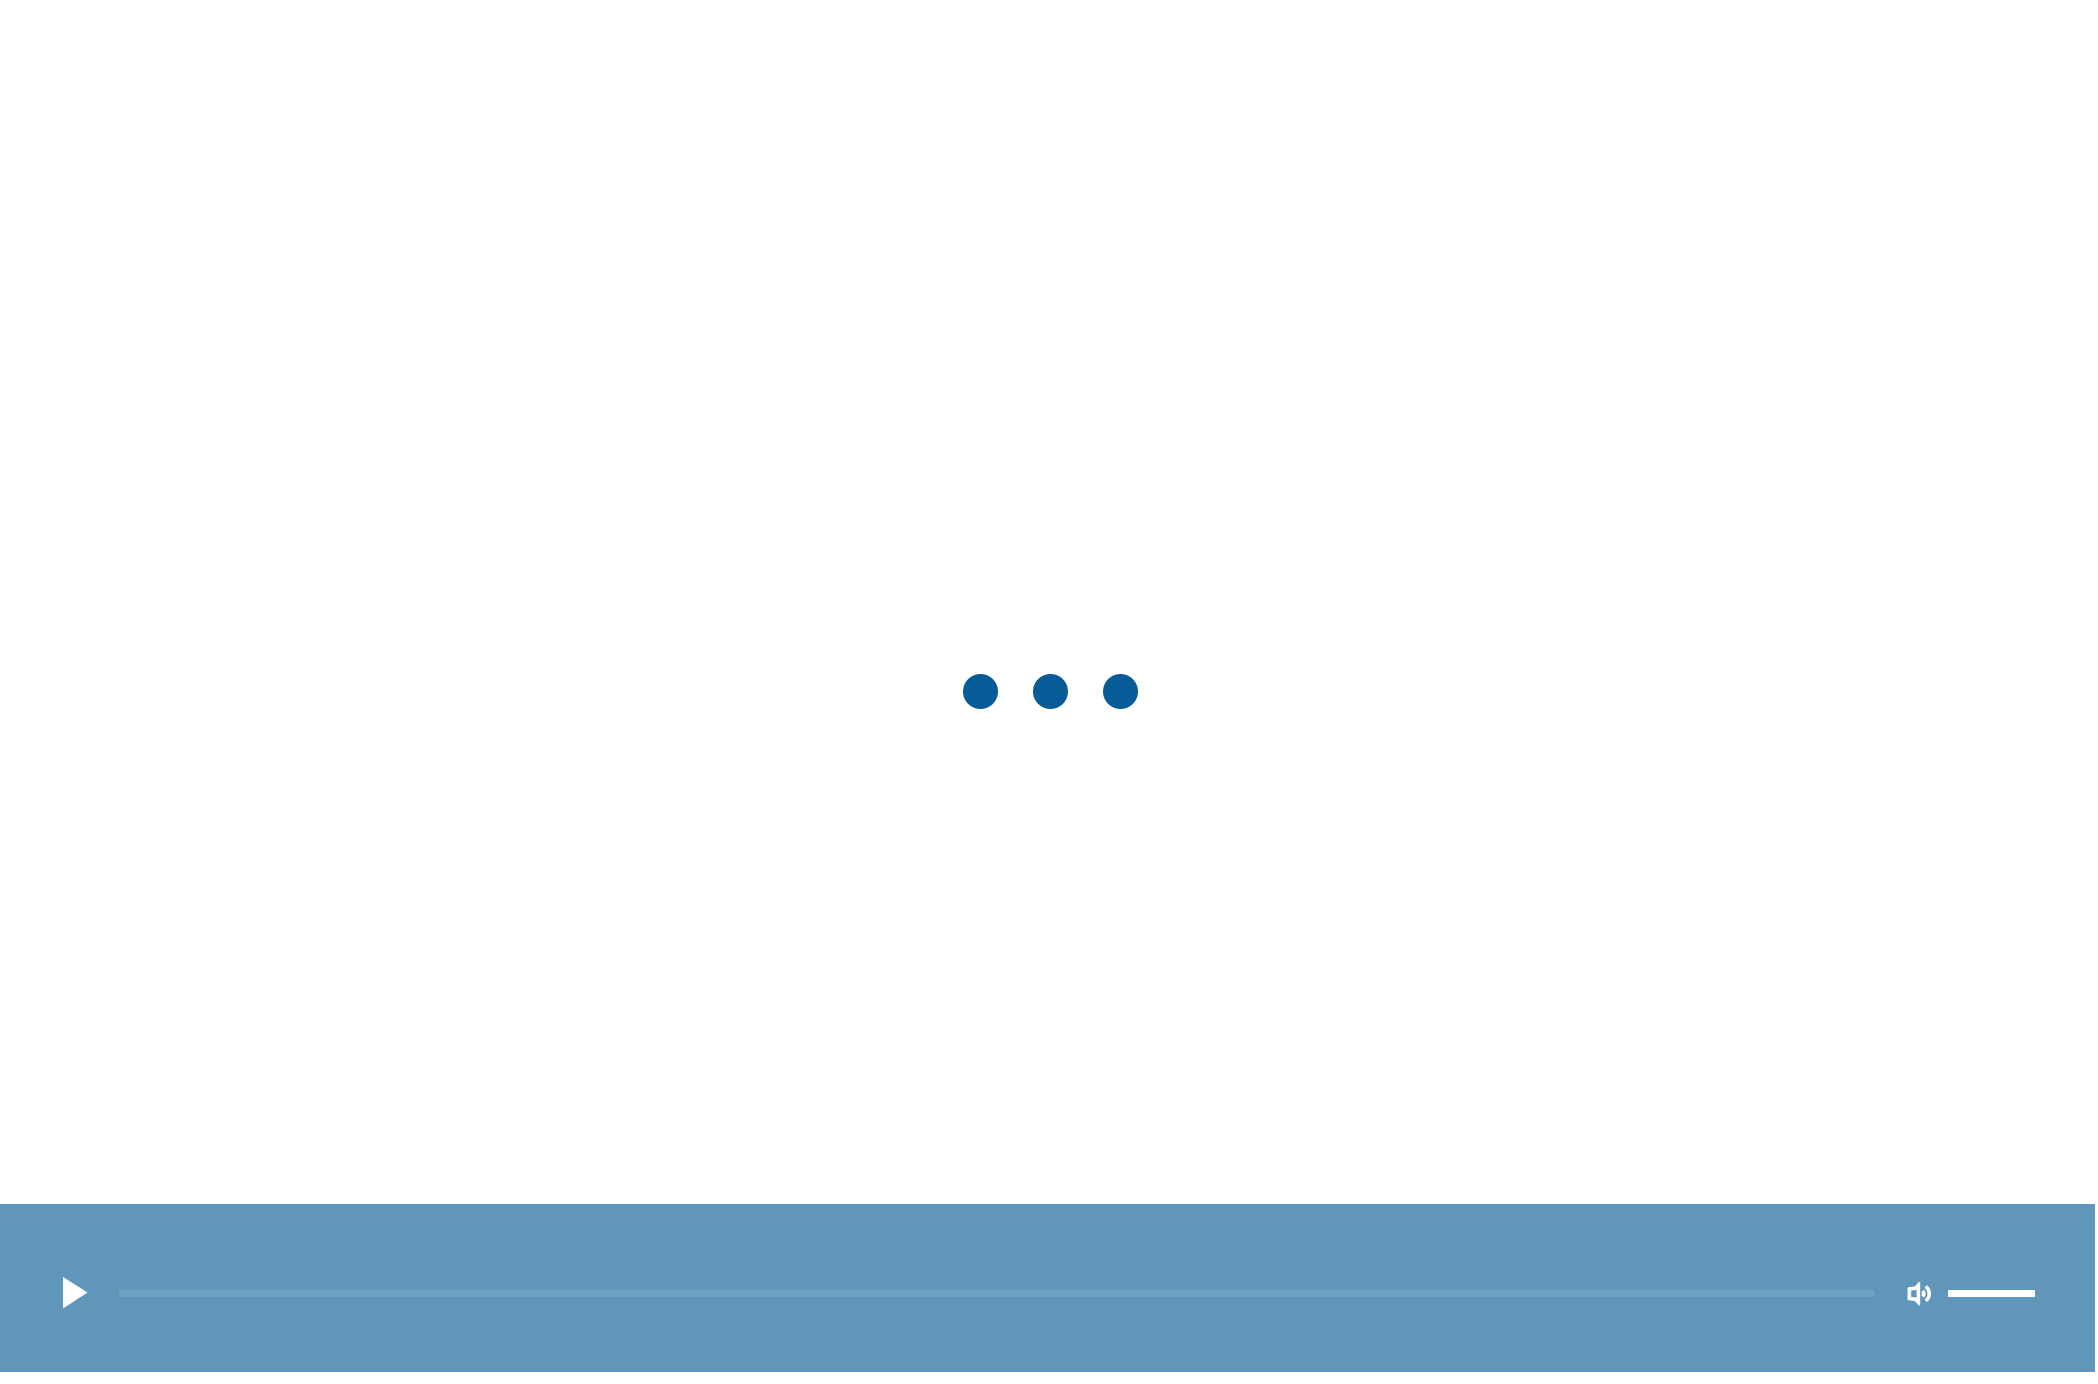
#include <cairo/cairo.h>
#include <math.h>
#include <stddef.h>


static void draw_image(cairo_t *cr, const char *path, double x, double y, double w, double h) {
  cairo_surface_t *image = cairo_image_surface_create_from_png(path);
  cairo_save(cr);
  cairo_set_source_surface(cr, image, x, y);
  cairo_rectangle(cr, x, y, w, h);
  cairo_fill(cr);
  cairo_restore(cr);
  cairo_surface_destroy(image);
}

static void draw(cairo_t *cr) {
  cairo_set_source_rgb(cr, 1, 1, 1);
  cairo_paint(cr);
  cairo_set_source_rgb(cr, 7 / 255.0, 91 / 255.0, 151 / 255.0);
  cairo_arc(cr, 980.5, 691.5, 17.5, 0, 2 * M_PI);
  cairo_fill(cr);
  cairo_arc(cr, 1050.5, 691.5, 17.5, 0, 2 * M_PI);
  cairo_fill(cr);
  cairo_arc(cr, 1120.5, 691.5, 17.5, 0, 2 * M_PI);
  cairo_fill(cr);
  cairo_set_source_rgb(cr, 95 / 255.0, 150 / 255.0, 185 / 255.0);
  cairo_rectangle(cr, 0, 1204, 2095, 168);
  cairo_fill(cr);
  cairo_set_source_rgb(cr, 1, 1, 1);
  cairo_new_path(cr);
  cairo_move_to(cr, 63, 1277);
  cairo_line_to(cr, 63, 1308.5);
  cairo_line_to(cr, 87.5, 1292.5);
  cairo_close_path(cr);
  cairo_fill(cr);
  cairo_set_source_rgb(cr, 111 / 255.0, 161 / 255.0, 192 / 255.0);
  cairo_rectangle(cr, 119, 1290, 1755, 7);
  cairo_fill(cr);
  draw_image(cr, "images/1.png", 1907, 1281, 25, 25);
  cairo_set_source_rgb(cr, 1, 1, 1);
  cairo_rectangle(cr, 1948, 1290, 87, 7);
  cairo_fill(cr);
}

int main(void) {
  cairo_surface_t *surface = cairo_image_surface_create(CAIRO_FORMAT_RGB24, 2098, 1384);
  cairo_t *cr = cairo_create(surface);
  cairo_font_options_t *options = cairo_font_options_create();
  cairo_font_options_set_hint_metrics(options, CAIRO_HINT_METRICS_OFF);
  cairo_font_options_set_hint_style(options, CAIRO_HINT_STYLE_NONE);
  cairo_set_font_options(cr, options);
  cairo_set_miter_limit(cr, 4);
  draw(cr);
  cairo_surface_write_to_png(surface, "out.png");
  cairo_font_options_destroy(options);
  cairo_destroy(cr);
  cairo_surface_destroy(surface);
  return 0;
}
